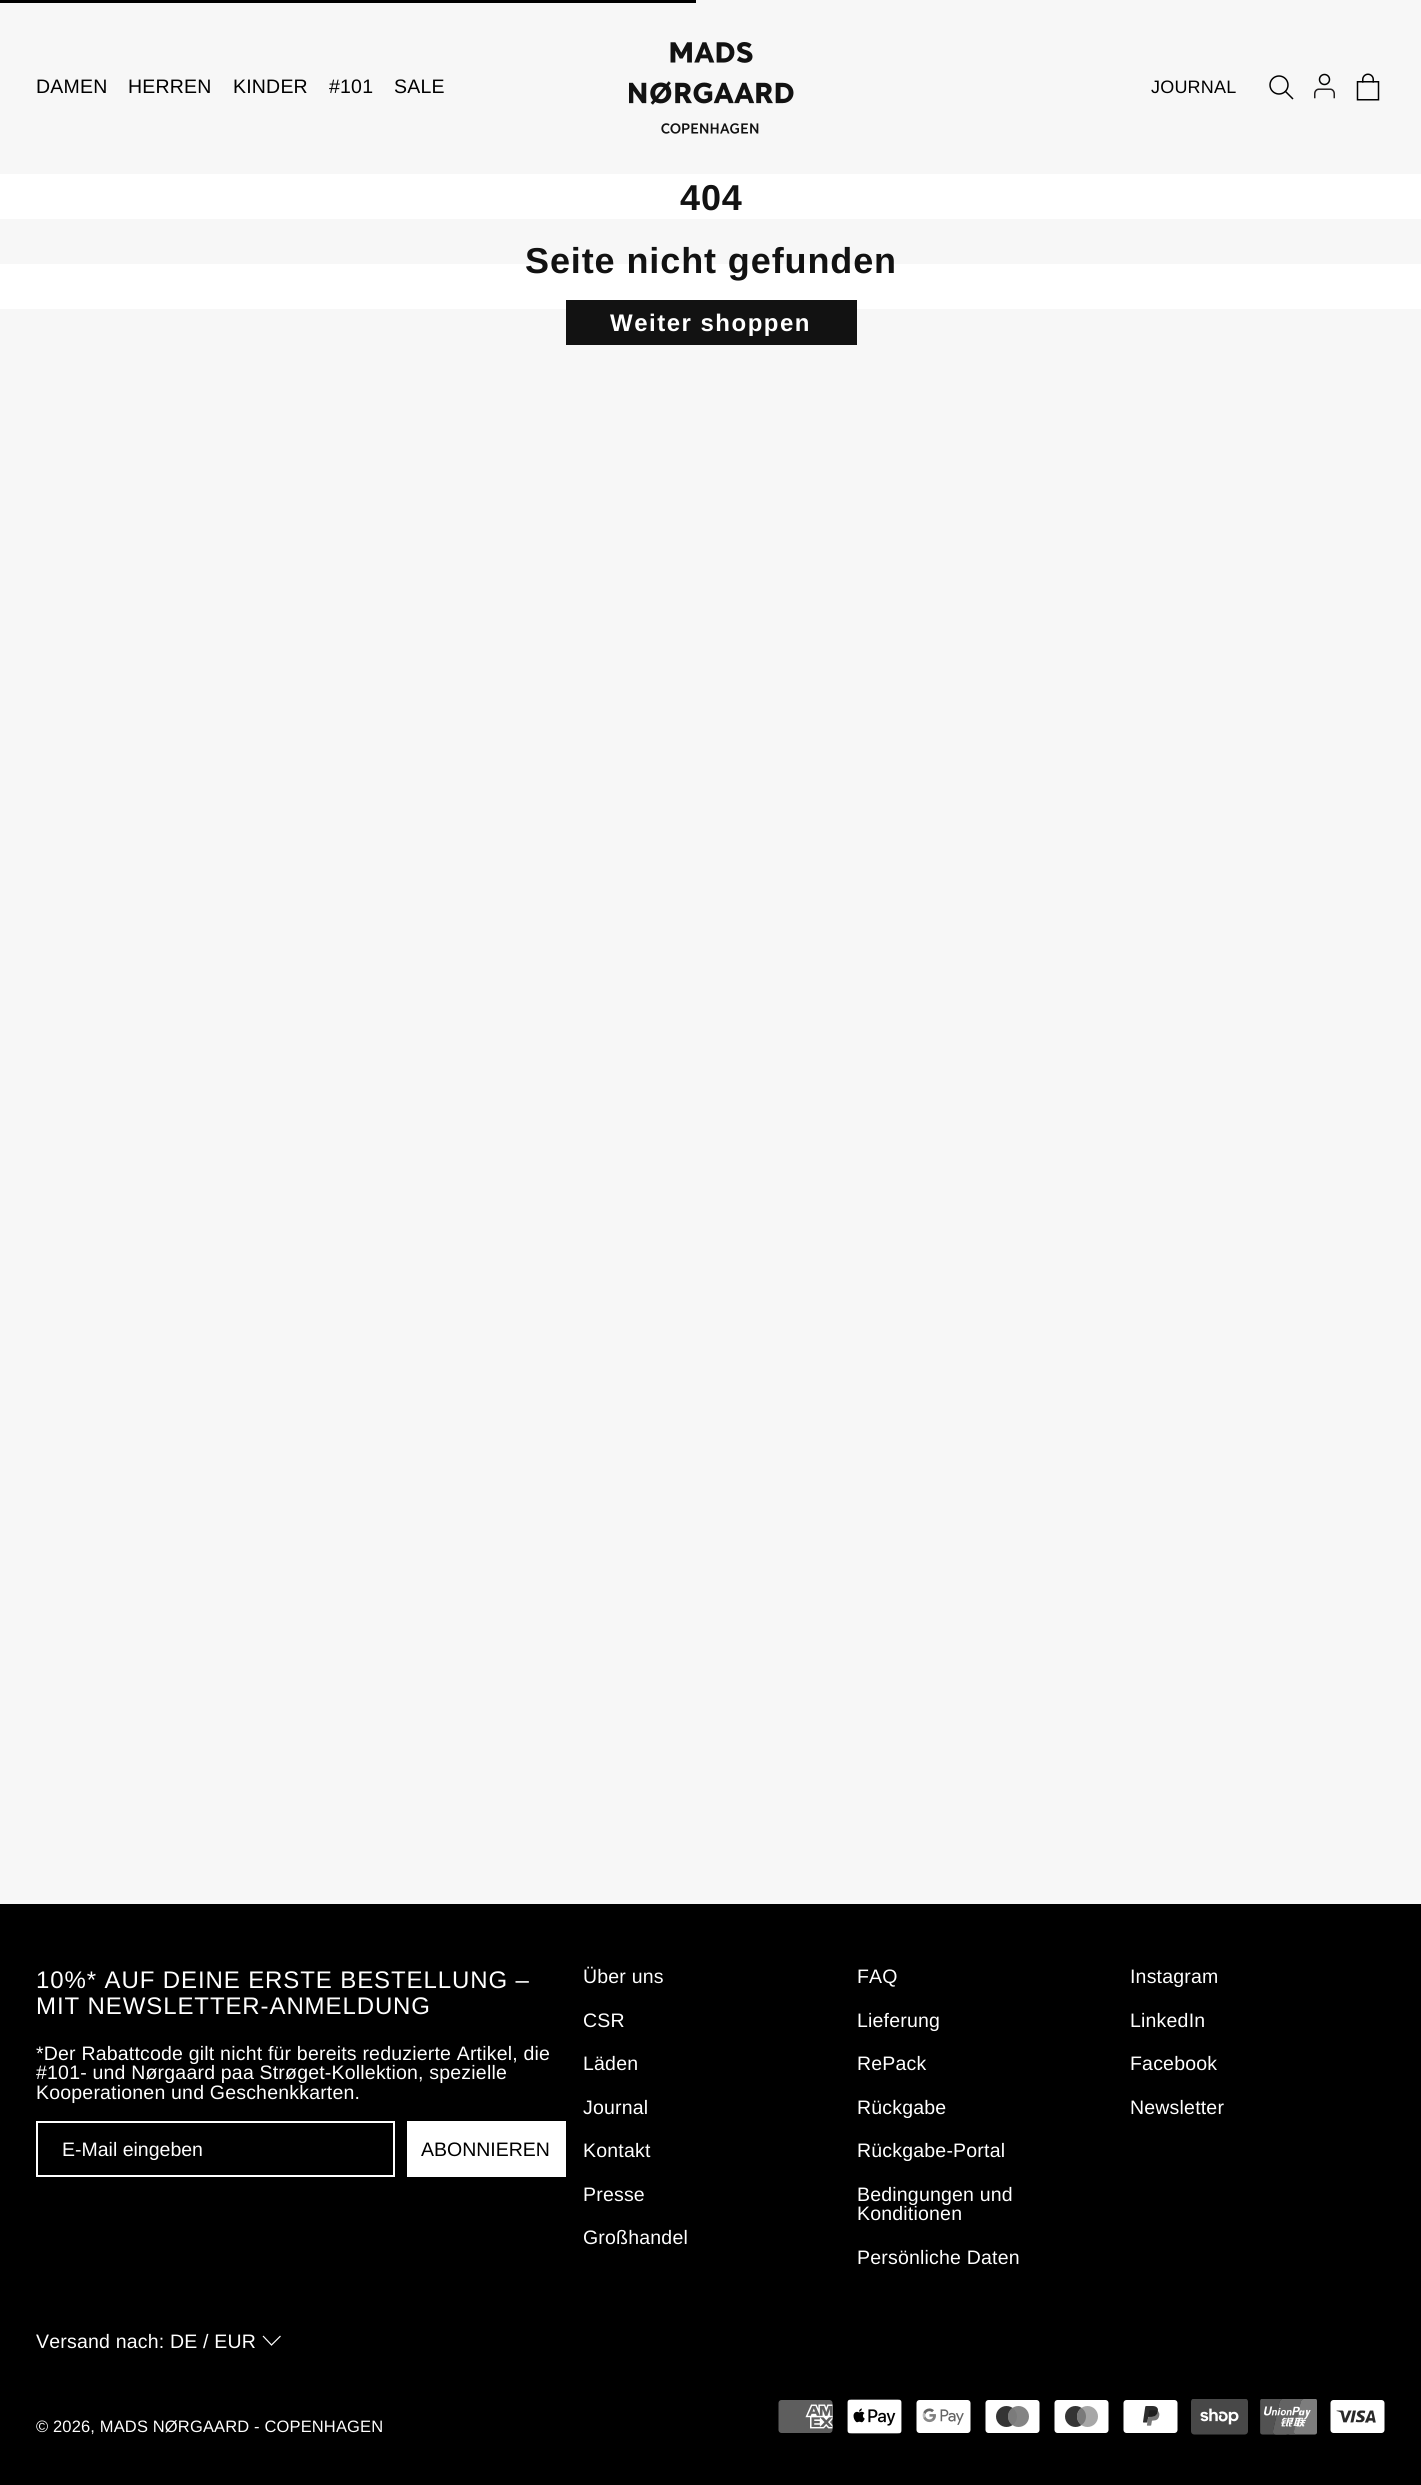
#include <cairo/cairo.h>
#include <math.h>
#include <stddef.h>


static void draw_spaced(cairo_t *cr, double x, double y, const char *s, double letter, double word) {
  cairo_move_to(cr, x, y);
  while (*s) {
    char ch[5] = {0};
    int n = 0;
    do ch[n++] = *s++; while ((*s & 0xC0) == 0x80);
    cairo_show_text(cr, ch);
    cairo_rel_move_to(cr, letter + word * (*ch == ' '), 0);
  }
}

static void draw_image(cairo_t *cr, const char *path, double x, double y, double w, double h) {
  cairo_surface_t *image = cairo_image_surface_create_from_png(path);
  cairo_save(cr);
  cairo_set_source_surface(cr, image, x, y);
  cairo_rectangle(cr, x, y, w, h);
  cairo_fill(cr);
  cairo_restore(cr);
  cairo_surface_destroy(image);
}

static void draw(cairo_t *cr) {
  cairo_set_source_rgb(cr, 247 / 255.0, 247 / 255.0, 247 / 255.0);
  cairo_paint(cr);
  cairo_set_source_rgb(cr, 0, 0, 0);
  cairo_rectangle(cr, 0, 0, 696, 3);
  cairo_fill(cr);
  draw_image(cr, "images/1.png", 629, 42, 165, 92);
  cairo_arc(cr, 1279, 85, 9, 0, 2 * M_PI);
  cairo_set_line_width(cr, 1.5);
  cairo_stroke(cr);
  cairo_new_path(cr);
  cairo_move_to(cr, 1285, 91);
  cairo_line_to(cr, 1293, 99);
  cairo_stroke(cr);
  draw_image(cr, "images/2.png", 1314, 73, 21, 26);
  draw_image(cr, "images/3.png", 1356, 73, 24, 28);
  cairo_set_source_rgb(cr, 1, 1, 1);
  cairo_rectangle(cr, 0, 174, 1421, 45);
  cairo_fill(cr);
  cairo_rectangle(cr, 0, 264, 1421, 45);
  cairo_fill(cr);
  cairo_set_source_rgb(cr, 18 / 255.0, 18 / 255.0, 18 / 255.0);
  cairo_rectangle(cr, 566, 300, 291, 45);
  cairo_fill(cr);
  cairo_set_source_rgb(cr, 0, 0, 0);
  cairo_rectangle(cr, 0, 1904, 1421, 581);
  cairo_fill(cr);
  cairo_rectangle(cr, 37, 2122, 357, 54);
  cairo_set_source_rgb(cr, 1, 1, 1);
  cairo_set_line_width(cr, 2);
  cairo_stroke(cr);
  cairo_rectangle(cr, 407, 2121, 159, 56);
  cairo_fill(cr);
  cairo_new_path(cr);
  cairo_move_to(cr, 263, 2336);
  cairo_line_to(cr, 271.5, 2345);
  cairo_line_to(cr, 280.5, 2336);
  cairo_set_line_width(cr, 1.2);
  cairo_stroke(cr);
  draw_image(cr, "images/4.png", 778, 2400, 55, 33);
  draw_image(cr, "images/5.png", 847, 2399, 55, 35);
  draw_image(cr, "images/6.png", 916, 2400, 55, 33);
  draw_image(cr, "images/7.png", 985, 2400, 55, 33);
  draw_image(cr, "images/8.png", 1054, 2400, 55, 33);
  draw_image(cr, "images/9.png", 1123, 2400, 55, 33);
  draw_image(cr, "images/10.png", 1191, 2399, 57, 36);
  draw_image(cr, "images/11.png", 1260, 2399, 57, 36);
  draw_image(cr, "images/12.png", 1330, 2400, 55, 33);
  cairo_select_font_face(cr, "Liberation Sans", CAIRO_FONT_SLANT_NORMAL, CAIRO_FONT_WEIGHT_NORMAL);
  cairo_set_font_size(cr, 19.5);
  cairo_set_source_rgb(cr, 0, 0, 0);
  draw_spaced(cr, 36, 93, "DAMEN", 0.2, 0);
  draw_spaced(cr, 128, 93, "HERREN", 0.2, 0);
  draw_spaced(cr, 233, 93, "KINDER", 0.2, 0);
  draw_spaced(cr, 329, 93, "#101", 0.2, 0);
  draw_spaced(cr, 394, 93, "SALE", 0.2, 0);
  cairo_set_font_size(cr, 18);
  draw_spaced(cr, 1151, 93, "JOURNAL", 0.2, 0);
  cairo_select_font_face(cr, "Liberation Sans", CAIRO_FONT_SLANT_NORMAL, CAIRO_FONT_WEIGHT_BOLD);
  cairo_set_font_size(cr, 36);
  cairo_set_source_rgb(cr, 18 / 255.0, 18 / 255.0, 18 / 255.0);
  draw_spaced(cr, 680, 210, "404", 0.9, 0);
  draw_spaced(cr, 525, 273, "Seite nicht gefunden", 0.9, 0);
  cairo_set_font_size(cr, 24);
  cairo_set_source_rgb(cr, 1, 1, 1);
  draw_spaced(cr, 610, 331, "Weiter shoppen", 1.5, 0);
  cairo_select_font_face(cr, "Liberation Sans", CAIRO_FONT_SLANT_NORMAL, CAIRO_FONT_WEIGHT_NORMAL);
  draw_spaced(cr, 36, 1988, "10%* AUF DEINE ERSTE BESTELLUNG –", 0.9, 0);
  draw_spaced(cr, 36, 2014, "MIT NEWSLETTER-ANMELDUNG", 0.9, 0);
  cairo_set_font_size(cr, 19.5);
  draw_spaced(cr, 36, 2060, "*Der Rabattcode gilt nicht für bereits reduzierte Artikel, die", 0.2, 0);
  draw_spaced(cr, 36, 2079, "#101- und Nørgaard paa Strøget-Kollektion, spezielle", 0.2, 0);
  draw_spaced(cr, 36, 2099, "Kooperationen und Geschenkkarten.", 0.2, 0);
  cairo_move_to(cr, 62, 2156);
  cairo_show_text(cr, "E-Mail eingeben");
  cairo_set_source_rgb(cr, 0, 0, 0);
  cairo_move_to(cr, 421, 2156);
  cairo_show_text(cr, "ABONNIEREN");
  cairo_set_source_rgb(cr, 1, 1, 1);
  draw_spaced(cr, 583, 1983, "Über uns", 0.2, 0);
  draw_spaced(cr, 583, 2027, "CSR", 0.2, 0);
  draw_spaced(cr, 583, 2070, "Läden", 0.2, 0);
  draw_spaced(cr, 583, 2114, "Journal", 0.2, 0);
  draw_spaced(cr, 583, 2157, "Kontakt", 0.2, 0);
  draw_spaced(cr, 583, 2201, "Presse", 0.2, 0);
  draw_spaced(cr, 583, 2244, "Großhandel", 0.2, 0);
  draw_spaced(cr, 857, 1983, "FAQ", 0.2, 0);
  draw_spaced(cr, 857, 2027, "Lieferung", 0.2, 0);
  draw_spaced(cr, 857, 2070, "RePack", 0.2, 0);
  draw_spaced(cr, 857, 2114, "Rückgabe", 0.2, 0);
  draw_spaced(cr, 857, 2157, "Rückgabe-Portal", 0.2, 0);
  draw_spaced(cr, 857, 2201, "Bedingungen und", 0.2, 0);
  draw_spaced(cr, 857, 2220, "Konditionen", 0.2, 0);
  draw_spaced(cr, 857, 2264, "Persönliche Daten", 0.2, 0);
  draw_spaced(cr, 1130, 1983, "Instagram", 0.2, 0);
  draw_spaced(cr, 1130, 2027, "LinkedIn", 0.2, 0);
  draw_spaced(cr, 1130, 2070, "Facebook", 0.2, 0);
  draw_spaced(cr, 1130, 2114, "Newsletter", 0.2, 0);
  draw_spaced(cr, 36, 2348, "Versand nach: DE / EUR", 0.2, 0);
  cairo_set_font_size(cr, 16.5);
  draw_spaced(cr, 36, 2432, "© 2026, MADS NØRGAARD - COPENHAGEN", 0.15, 0);
}

int main(void) {
  cairo_surface_t *surface = cairo_image_surface_create(CAIRO_FORMAT_RGB24, 1421, 2485);
  cairo_t *cr = cairo_create(surface);
  cairo_font_options_t *options = cairo_font_options_create();
  cairo_font_options_set_hint_metrics(options, CAIRO_HINT_METRICS_OFF);
  cairo_font_options_set_hint_style(options, CAIRO_HINT_STYLE_NONE);
  cairo_set_font_options(cr, options);
  cairo_set_miter_limit(cr, 4);
  draw(cr);
  cairo_surface_write_to_png(surface, "out.png");
  cairo_font_options_destroy(options);
  cairo_destroy(cr);
  cairo_surface_destroy(surface);
  return 0;
}
